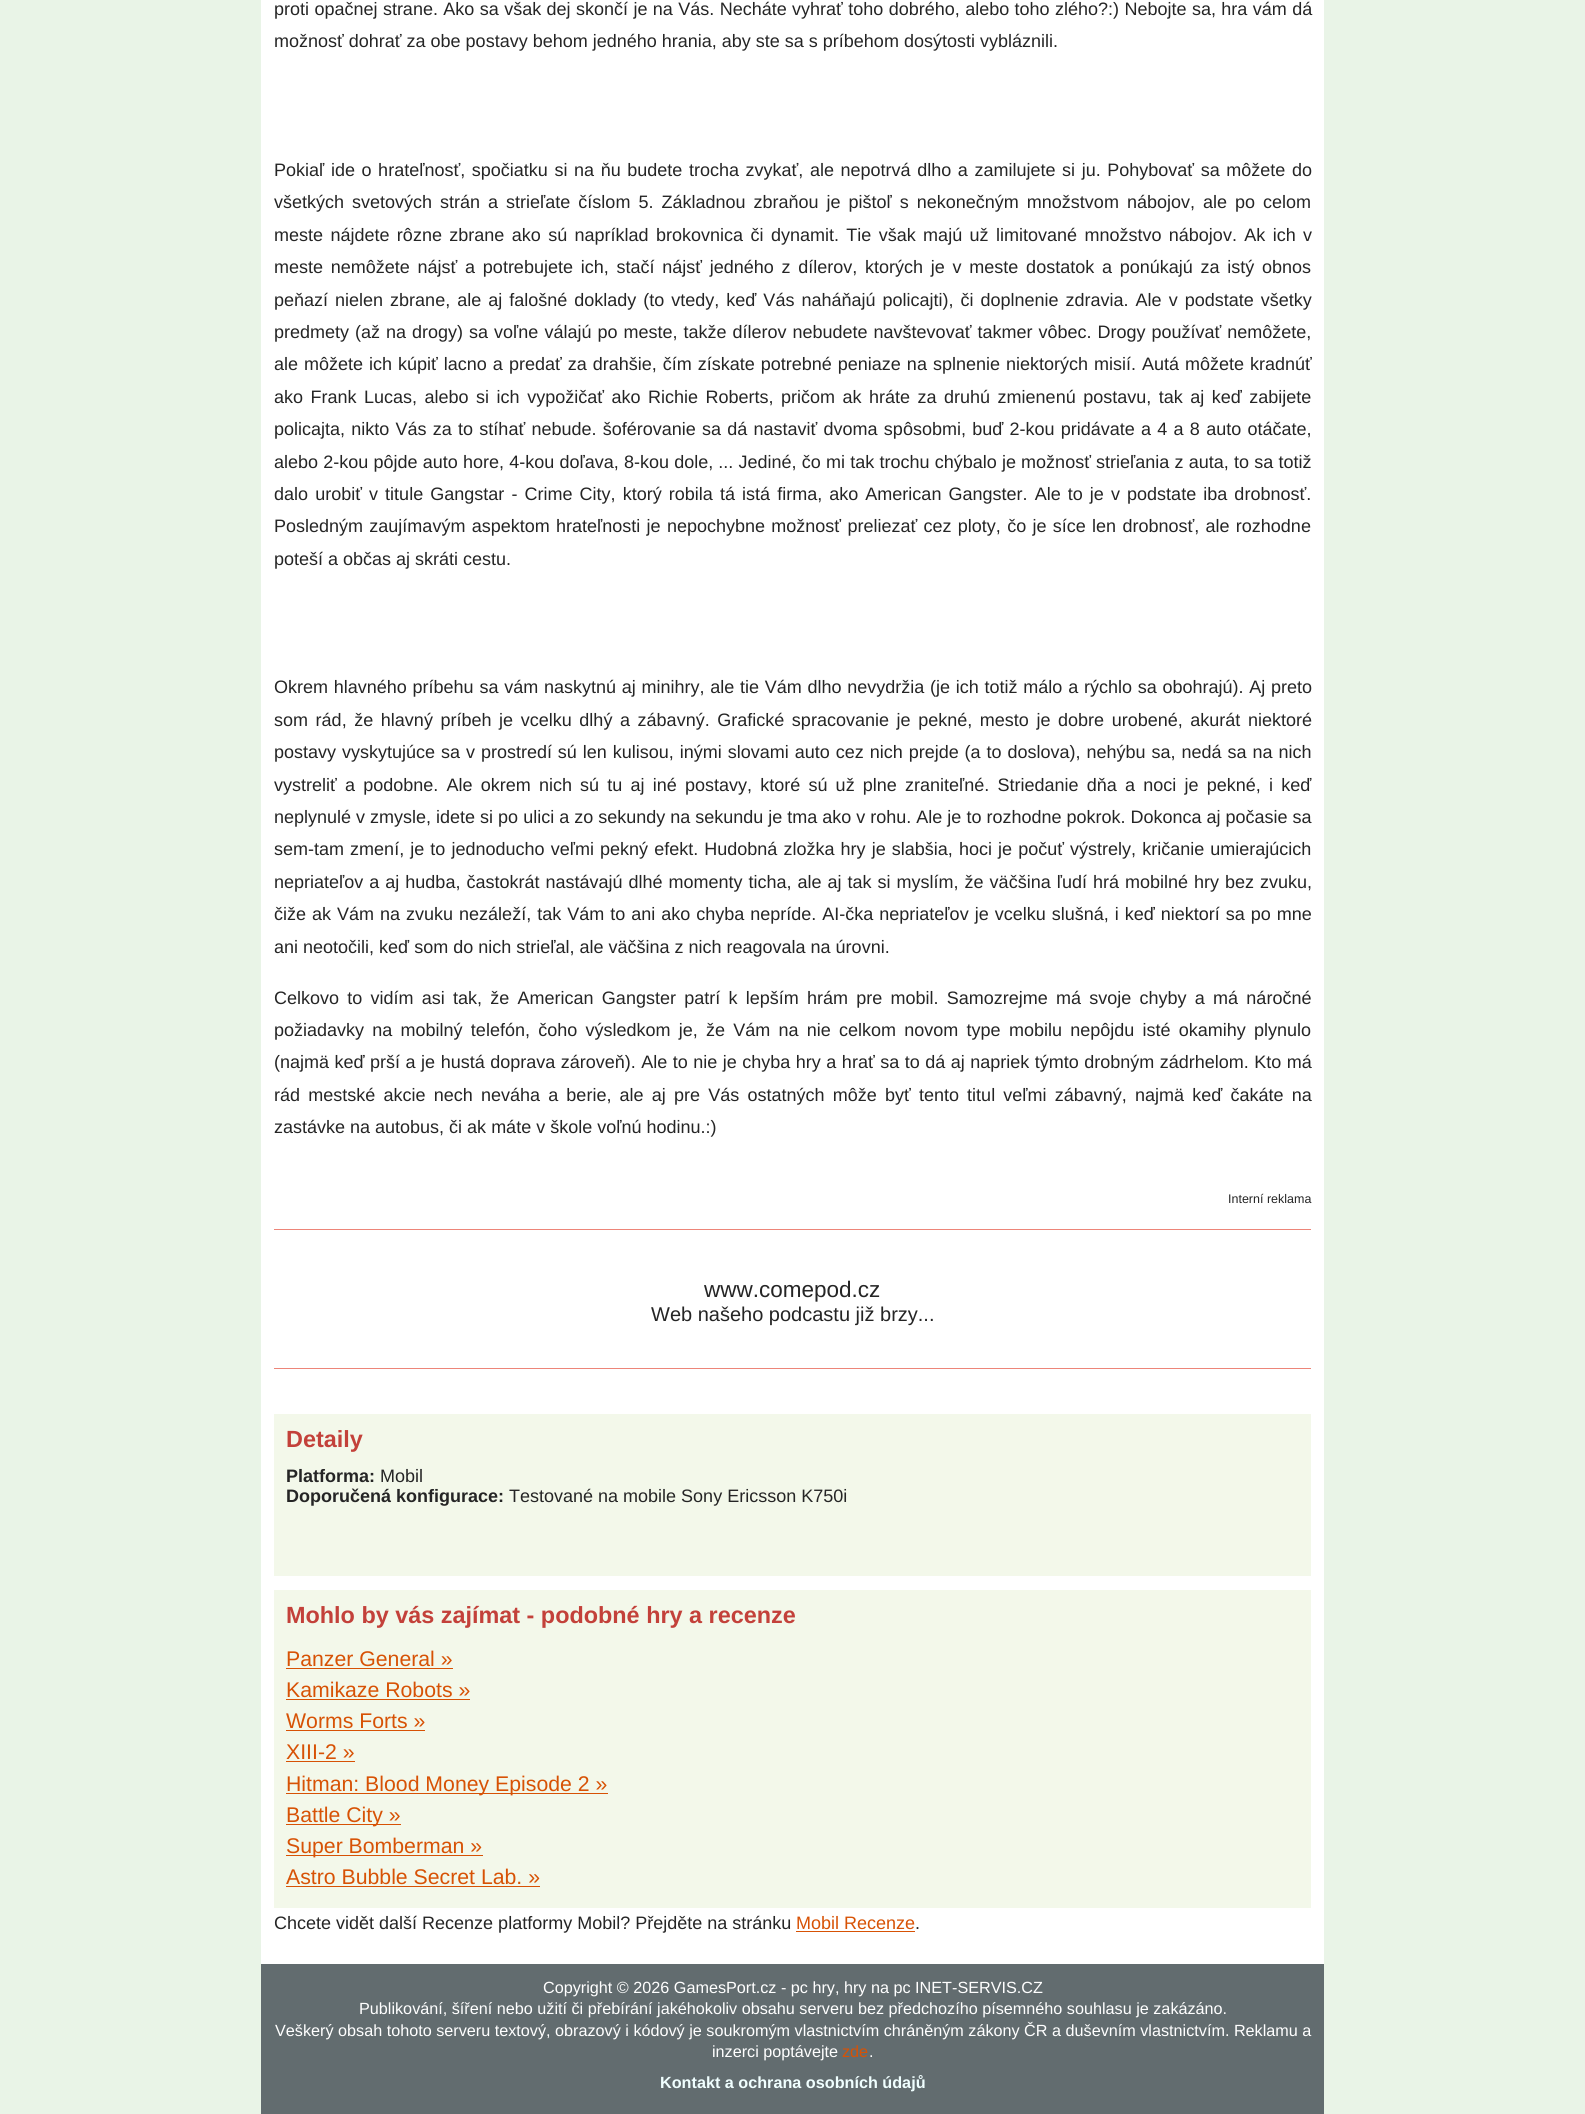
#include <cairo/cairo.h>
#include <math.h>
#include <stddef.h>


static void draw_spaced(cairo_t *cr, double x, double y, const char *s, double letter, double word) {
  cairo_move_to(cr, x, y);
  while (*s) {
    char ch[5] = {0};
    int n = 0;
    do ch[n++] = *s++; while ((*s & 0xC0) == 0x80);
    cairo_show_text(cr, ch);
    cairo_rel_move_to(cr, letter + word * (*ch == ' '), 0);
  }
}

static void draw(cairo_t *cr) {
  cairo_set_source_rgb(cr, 233 / 255.0, 244 / 255.0, 231 / 255.0);
  cairo_paint(cr);
  cairo_set_source_rgb(cr, 1, 1, 1);
  cairo_rectangle(cr, 261, 0, 1063, 1964);
  cairo_fill(cr);
  cairo_set_source_rgb(cr, 237 / 255.0, 133 / 255.0, 121 / 255.0);
  cairo_rectangle(cr, 274, 1229, 1037, 1);
  cairo_fill(cr);
  cairo_rectangle(cr, 274, 1368, 1037, 1);
  cairo_fill(cr);
  cairo_set_source_rgb(cr, 243 / 255.0, 248 / 255.0, 234 / 255.0);
  cairo_rectangle(cr, 274, 1414, 1037, 162);
  cairo_fill(cr);
  cairo_rectangle(cr, 274, 1590, 1037, 318);
  cairo_fill(cr);
  cairo_set_source_rgb(cr, 215 / 255.0, 82 / 255.0, 5 / 255.0);
  cairo_rectangle(cr, 286, 1668, 167, 1);
  cairo_fill(cr);
  cairo_rectangle(cr, 286, 1699, 184, 1);
  cairo_fill(cr);
  cairo_rectangle(cr, 286, 1730, 139, 1);
  cairo_fill(cr);
  cairo_rectangle(cr, 286, 1761, 69, 1);
  cairo_fill(cr);
  cairo_rectangle(cr, 286, 1793, 322, 1);
  cairo_fill(cr);
  cairo_rectangle(cr, 286, 1824, 115, 1);
  cairo_fill(cr);
  cairo_rectangle(cr, 286, 1855, 197, 1);
  cairo_fill(cr);
  cairo_rectangle(cr, 286, 1886, 254, 1);
  cairo_fill(cr);
  cairo_rectangle(cr, 796, 1931, 119, 1);
  cairo_fill(cr);
  cairo_set_source_rgb(cr, 98 / 255.0, 108 / 255.0, 111 / 255.0);
  cairo_rectangle(cr, 261, 1964, 1063, 150);
  cairo_fill(cr);
  cairo_select_font_face(cr, "Liberation Sans", CAIRO_FONT_SLANT_NORMAL, CAIRO_FONT_WEIGHT_NORMAL);
  cairo_set_font_size(cr, 18);
  cairo_set_source_rgb(cr, 37 / 255.0, 37 / 255.0, 37 / 255.0);
  draw_spaced(cr, 274, 15, "proti opačnej strane. Ako sa však dej skončí je na Vás. Necháte vyhrať toho dobrého, alebo toho zlého?:) Nebojte sa, hra vám dá", 0, 0.4);
  cairo_move_to(cr, 274, 47);
  cairo_show_text(cr, "možnosť dohrať za obe postavy behom jedného hrania, aby ste sa s príbehom dosýtosti vybláznili.");
  draw_spaced(cr, 274, 176, "Pokiaľ ide o hrateľnosť, spočiatku si na ňu budete trocha zvykať, ale nepotrvá dlho a zamilujete si ju. Pohybovať sa môžete do", 0, 1.6);
  draw_spaced(cr, 274, 208, "všetkých svetových strán a strieľate číslom 5. Základnou zbraňou je pištoľ s nekonečným množstvom nábojov, ale po celom", 0, 3);
  draw_spaced(cr, 274, 241, "meste nájdete rôzne zbrane ako sú napríklad brokovnica či dynamit. Tie však majú už limitované množstvo nábojov. Ak ich v", 0, 2.4);
  draw_spaced(cr, 274, 273, "meste nemôžete nájsť a potrebujete ich, stačí nájsť jedného z dílerov, ktorých je v meste dostatok a ponúkajú za istý obnos", 0, 2.75);
  draw_spaced(cr, 274, 306, "peňazí nielen zbrane, ale aj falošné doklady (to vtedy, keď Vás naháňajú policajti), či doplnenie zdravia. Ale v podstate všetky", 0, 2);
  draw_spaced(cr, 274, 338, "predmety (až na drogy) sa voľne válajú po meste, takže dílerov nebudete navštevovať takmer vôbec. Drogy používať nemôžete,", 0, 1);
  draw_spaced(cr, 274, 370, "ale môžete ich kúpiť lacno a predať za drahšie, čím získate potrebné peniaze na splnenie niektorých misií. Autá môžete kradnúť", 0, 1);
  draw_spaced(cr, 274, 403, "ako Frank Lucas, alebo si ich vypožičať ako Richie Roberts, pričom ak hráte za druhú zmienenú postavu, tak aj keď zabijete", 0, 2.5);
  draw_spaced(cr, 274, 435, "policajta, nikto Vás za to stíhať nebude. šoférovanie sa dá nastaviť dvoma spôsobmi, buď 2-kou pridávate a 4 a 8 auto otáčate,", 0, 1.25);
  draw_spaced(cr, 274, 468, "alebo 2-kou pôjde auto hore, 4-kou doľava, 8-kou dole, ... Jediné, čo mi tak trochu chýbalo je možnosť strieľania z auta, to sa totiž", 0, 0.2);
  draw_spaced(cr, 274, 500, "dalo urobiť v titule Gangstar - Crime City, ktorý robila tá istá firma, ako American Gangster. Ale to je v podstate iba drobnosť.", 0, 2.1);
  draw_spaced(cr, 274, 532, "Posledným zaujímavým aspektom hrateľnosti je nepochybne možnosť preliezať cez ploty, čo je síce len drobnosť, ale rozhodne", 0, 1.3);
  cairo_move_to(cr, 274, 565);
  cairo_show_text(cr, "poteší a občas aj skráti cestu.");
  draw_spaced(cr, 274, 693, "Okrem hlavného príbehu sa vám naskytnú aj minihry, ale tie Vám dlho nevydržia (je ich totiž málo a rýchlo sa obohrajú). Aj preto", 0, 0.75);
  draw_spaced(cr, 274, 726, "som rád, že hlavný príbeh je vcelku dlhý a zábavný. Grafické spracovanie je pekné, mesto je dobre urobené, akurát niektoré", 0, 2.6);
  draw_spaced(cr, 274, 758, "postavy vyskytujúce sa v prostredí sú len kulisou, inými slovami auto cez nich prejde (a to doslova), nehýbu sa, nedá sa na nich", 0, 0.95);
  draw_spaced(cr, 274, 791, "vystreliť a podobne. Ale okrem nich sú tu aj iné postavy, ktoré sú už plne zraniteľné. Striedanie dňa a noci je pekné, i keď", 0, 3.2);
  cairo_move_to(cr, 274, 823);
  cairo_show_text(cr, "neplynulé v zmysle, idete si po ulici a zo sekundy na sekundu je tma ako v rohu. Ale je to rozhodne pokrok. Dokonca aj počasie sa");
  draw_spaced(cr, 274, 855, "sem-tam zmení, je to jednoducho veľmi pekný efekt. Hudobná zložka hry je slabšia, hoci je počuť výstrely, kričanie umierajúcich", 0, 1.1);
  draw_spaced(cr, 274, 888, "nepriateľov a aj hudba, častokrát nastávajú dlhé momenty ticha, ale aj tak si myslím, že väčšina ľudí hrá mobilné hry bez zvuku,", 0, 1);
  draw_spaced(cr, 274, 920, "čiže ak Vám na zvuku nezáleží, tak Vám to ani ako chyba nepríde. AI-čka nepriateľov je vcelku slušná, i keď niektorí sa po mne", 0, 1);
  cairo_move_to(cr, 274, 953);
  cairo_show_text(cr, "ani neotočili, keď som do nich strieľal, ale väčšina z nich reagovala na úrovni.");
  draw_spaced(cr, 274, 1004, "Celkovo to vidím asi tak, že American Gangster patrí k lepším hrám pre mobil. Samozrejme má svoje chyby a má náročné", 0, 3.25);
  draw_spaced(cr, 274, 1036, "požiadavky na mobilný telefón, čoho výsledkom je, že Vám na nie celkom novom type mobilu nepôjdu isté okamihy plynulo", 0, 3.25);
  draw_spaced(cr, 274, 1068, "(najmä keď prší a je hustá doprava zároveň). Ale to nie je chyba hry a hrať sa to dá aj napriek týmto drobným zádrhelom. Kto má", 0, 0.5);
  draw_spaced(cr, 274, 1101, "rád mestské akcie nech neváha a berie, ale aj pre Vás ostatných môže byť tento titul veľmi zábavný, najmä keď čakáte na", 0, 3.2);
  cairo_move_to(cr, 274, 1133);
  cairo_show_text(cr, "zastávke na autobus, či ak máte v škole voľnú hodinu.:)");
  cairo_set_font_size(cr, 12.5);
  cairo_move_to(cr, 1228, 1203);
  cairo_show_text(cr, "Interní reklama");
  cairo_set_font_size(cr, 22.5);
  cairo_move_to(cr, 704, 1297);
  cairo_show_text(cr, "www.comepod.cz");
  cairo_set_font_size(cr, 20);
  cairo_move_to(cr, 651, 1321);
  cairo_show_text(cr, "Web našeho podcastu již brzy...");
  cairo_select_font_face(cr, "Liberation Sans", CAIRO_FONT_SLANT_NORMAL, CAIRO_FONT_WEIGHT_BOLD);
  cairo_set_font_size(cr, 23.4);
  cairo_set_source_rgb(cr, 195 / 255.0, 65 / 255.0, 58 / 255.0);
  cairo_move_to(cr, 286, 1447);
  cairo_show_text(cr, "Detaily");
  cairo_set_font_size(cr, 18);
  cairo_set_source_rgb(cr, 37 / 255.0, 37 / 255.0, 37 / 255.0);
  cairo_move_to(cr, 286, 1482);
  cairo_show_text(cr, "Platforma:");
  cairo_select_font_face(cr, "Liberation Sans", CAIRO_FONT_SLANT_NORMAL, CAIRO_FONT_WEIGHT_NORMAL);
  cairo_move_to(cr, 380, 1482);
  cairo_show_text(cr, "Mobil");
  cairo_select_font_face(cr, "Liberation Sans", CAIRO_FONT_SLANT_NORMAL, CAIRO_FONT_WEIGHT_BOLD);
  cairo_move_to(cr, 286, 1502);
  cairo_show_text(cr, "Doporučená konfigurace:");
  cairo_select_font_face(cr, "Liberation Sans", CAIRO_FONT_SLANT_NORMAL, CAIRO_FONT_WEIGHT_NORMAL);
  cairo_move_to(cr, 509, 1502);
  cairo_show_text(cr, "Testované na mobile Sony Ericsson K750i");
  cairo_select_font_face(cr, "Liberation Sans", CAIRO_FONT_SLANT_NORMAL, CAIRO_FONT_WEIGHT_BOLD);
  cairo_set_font_size(cr, 23.4);
  cairo_set_source_rgb(cr, 195 / 255.0, 65 / 255.0, 58 / 255.0);
  cairo_move_to(cr, 286, 1623);
  cairo_show_text(cr, "Mohlo by vás zajímat - podobné hry a recenze");
  cairo_select_font_face(cr, "Liberation Sans", CAIRO_FONT_SLANT_NORMAL, CAIRO_FONT_WEIGHT_NORMAL);
  cairo_set_font_size(cr, 21.25);
  cairo_set_source_rgb(cr, 215 / 255.0, 82 / 255.0, 5 / 255.0);
  cairo_move_to(cr, 286, 1666);
  cairo_show_text(cr, "Panzer General »");
  cairo_move_to(cr, 286, 1697);
  cairo_show_text(cr, "Kamikaze Robots »");
  cairo_move_to(cr, 286, 1728);
  cairo_show_text(cr, "Worms Forts »");
  cairo_move_to(cr, 286, 1759);
  cairo_show_text(cr, "XIII-2 »");
  cairo_move_to(cr, 286, 1791);
  cairo_show_text(cr, "Hitman: Blood Money Episode 2 »");
  cairo_move_to(cr, 286, 1822);
  cairo_show_text(cr, "Battle City »");
  cairo_move_to(cr, 286, 1853);
  cairo_show_text(cr, "Super Bomberman »");
  cairo_move_to(cr, 286, 1884);
  cairo_show_text(cr, "Astro Bubble Secret Lab. »");
  cairo_set_font_size(cr, 18);
  cairo_set_source_rgb(cr, 37 / 255.0, 37 / 255.0, 37 / 255.0);
  cairo_move_to(cr, 274, 1929);
  cairo_show_text(cr, "Chcete vidět další Recenze platformy Mobil? Přejděte na stránku");
  cairo_set_source_rgb(cr, 215 / 255.0, 82 / 255.0, 5 / 255.0);
  cairo_move_to(cr, 796, 1929);
  cairo_show_text(cr, "Mobil Recenze");
  cairo_set_source_rgb(cr, 37 / 255.0, 37 / 255.0, 37 / 255.0);
  cairo_move_to(cr, 915, 1929);
  cairo_show_text(cr, ".");
  cairo_set_font_size(cr, 16.2);
  cairo_set_source_rgb(cr, 1, 1, 1);
  cairo_move_to(cr, 543, 1993);
  cairo_show_text(cr, "Copyright © 2026 GamesPort.cz - pc hry, hry na pc INET-SERVIS.CZ");
  cairo_move_to(cr, 359, 2014);
  cairo_show_text(cr, "Publikování, šíření nebo užití či přebírání jakéhokoliv obsahu serveru bez předchozího písemného souhlasu je zakázáno.");
  cairo_move_to(cr, 275, 2036);
  cairo_show_text(cr, "Veškerý obsah tohoto serveru textový, obrazový i kódový je soukromým vlastnictvím chráněným zákony ČR a duševním vlastnictvím. Reklamu a");
  cairo_move_to(cr, 712, 2057);
  cairo_show_text(cr, "inzerci poptávejte");
  cairo_set_source_rgb(cr, 215 / 255.0, 82 / 255.0, 5 / 255.0);
  cairo_move_to(cr, 842, 2057);
  cairo_show_text(cr, "zde");
  cairo_set_source_rgb(cr, 1, 1, 1);
  cairo_move_to(cr, 869, 2057);
  cairo_show_text(cr, ".");
  cairo_select_font_face(cr, "Liberation Sans", CAIRO_FONT_SLANT_NORMAL, CAIRO_FONT_WEIGHT_BOLD);
  cairo_set_source_rgb(cr, 240 / 255.0, 1, 1);
  cairo_move_to(cr, 660, 2088);
  cairo_show_text(cr, "Kontakt a ochrana osobních údajů");
}

int main(void) {
  cairo_surface_t *surface = cairo_image_surface_create(CAIRO_FORMAT_RGB24, 1585, 2114);
  cairo_t *cr = cairo_create(surface);
  cairo_font_options_t *options = cairo_font_options_create();
  cairo_font_options_set_hint_metrics(options, CAIRO_HINT_METRICS_OFF);
  cairo_font_options_set_hint_style(options, CAIRO_HINT_STYLE_NONE);
  cairo_set_font_options(cr, options);
  cairo_set_miter_limit(cr, 4);
  draw(cr);
  cairo_surface_write_to_png(surface, "out.png");
  cairo_font_options_destroy(options);
  cairo_destroy(cr);
  cairo_surface_destroy(surface);
  return 0;
}
